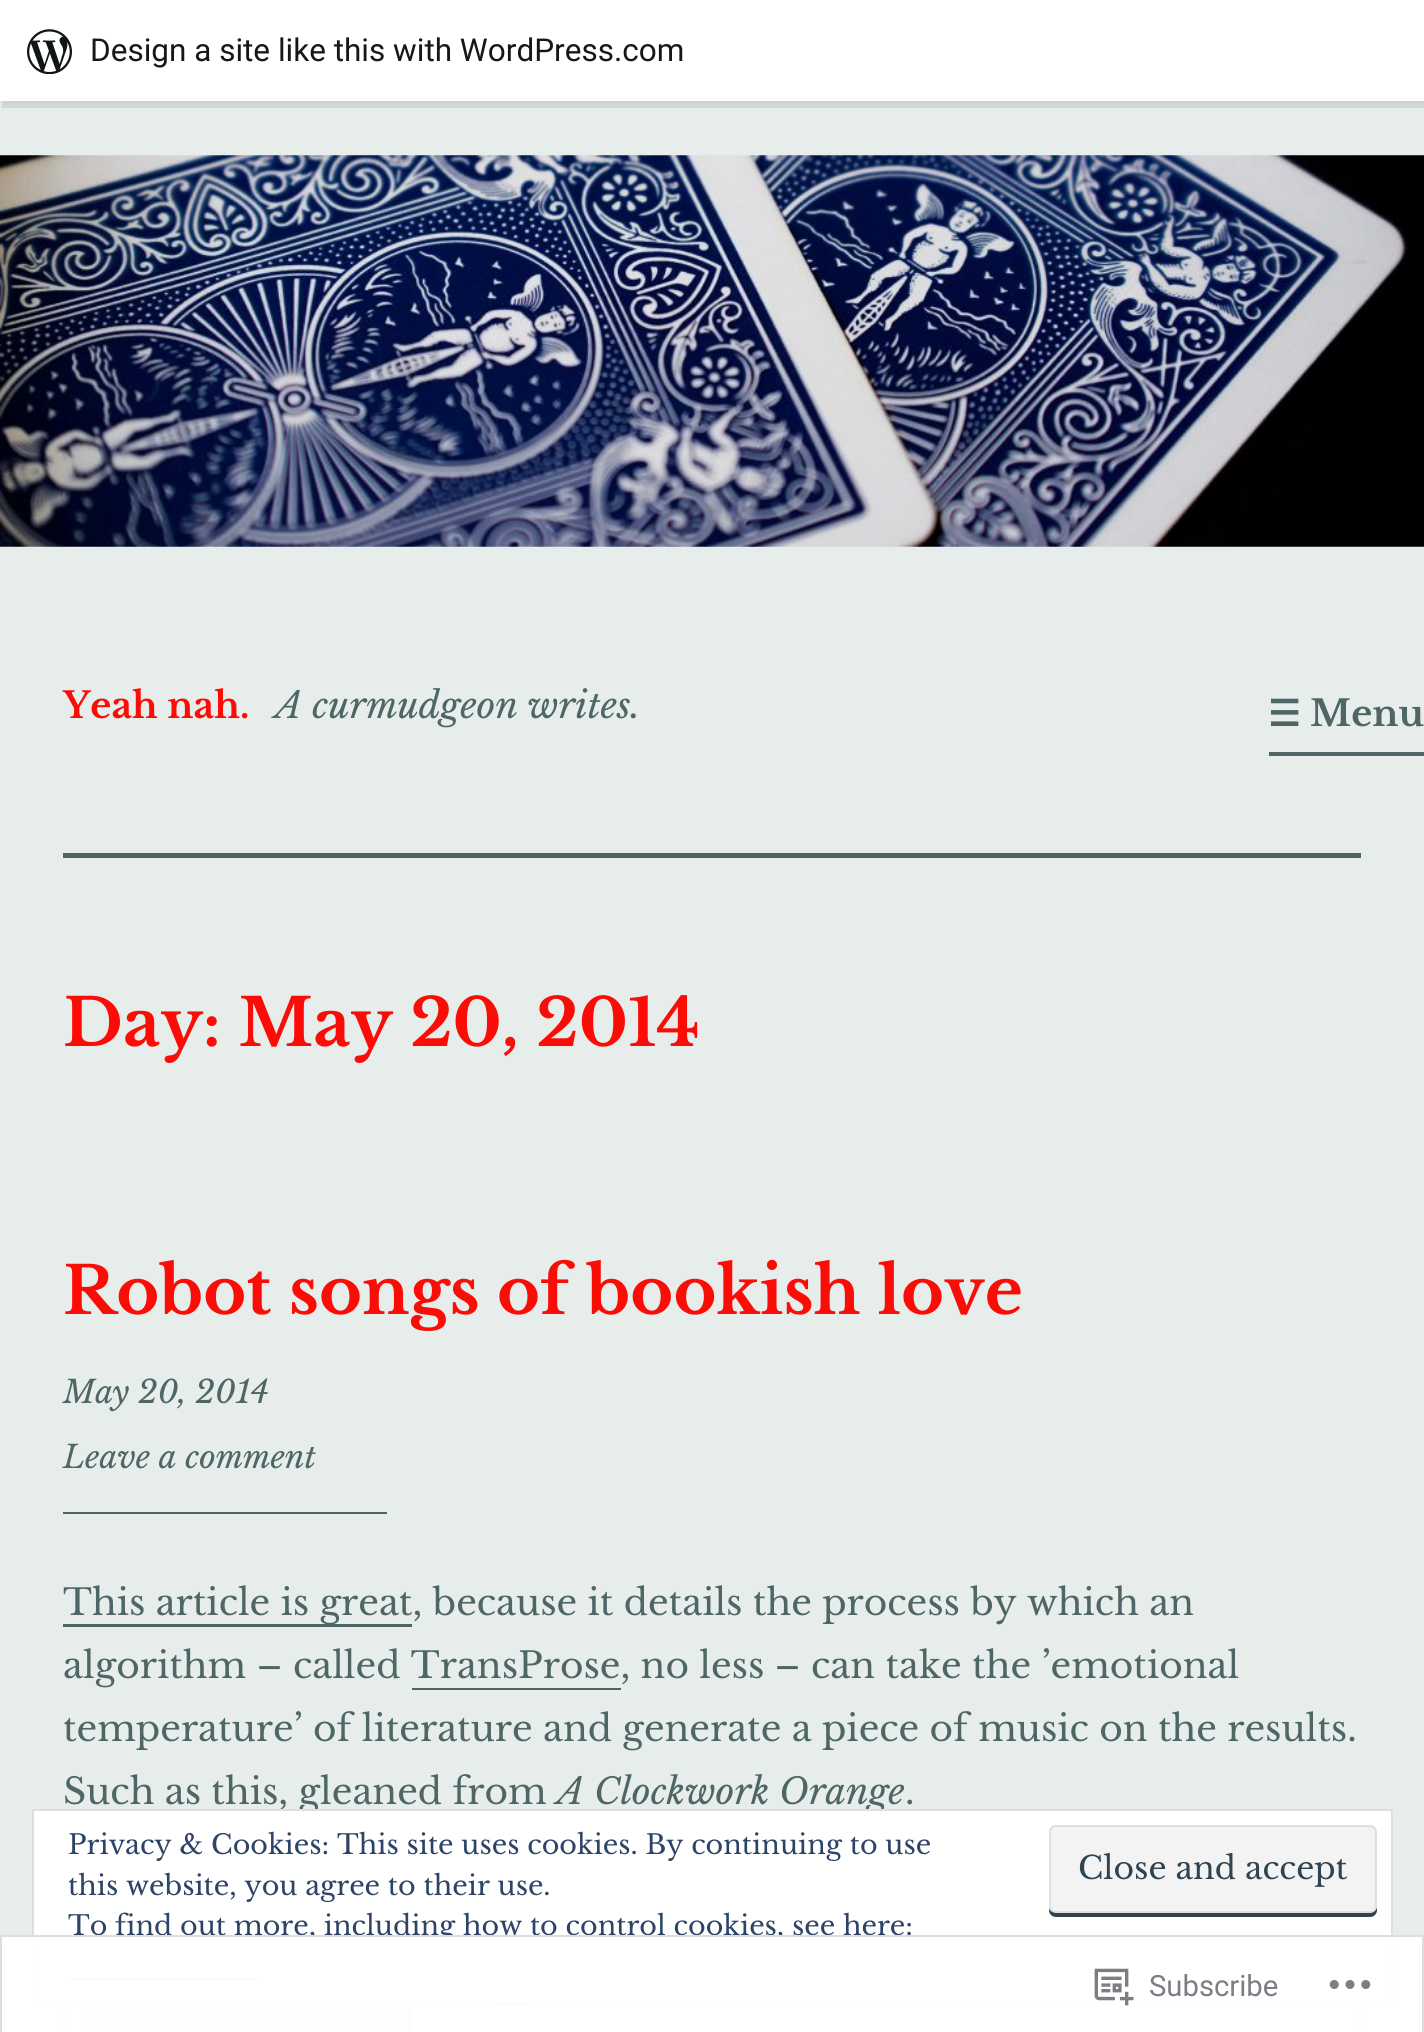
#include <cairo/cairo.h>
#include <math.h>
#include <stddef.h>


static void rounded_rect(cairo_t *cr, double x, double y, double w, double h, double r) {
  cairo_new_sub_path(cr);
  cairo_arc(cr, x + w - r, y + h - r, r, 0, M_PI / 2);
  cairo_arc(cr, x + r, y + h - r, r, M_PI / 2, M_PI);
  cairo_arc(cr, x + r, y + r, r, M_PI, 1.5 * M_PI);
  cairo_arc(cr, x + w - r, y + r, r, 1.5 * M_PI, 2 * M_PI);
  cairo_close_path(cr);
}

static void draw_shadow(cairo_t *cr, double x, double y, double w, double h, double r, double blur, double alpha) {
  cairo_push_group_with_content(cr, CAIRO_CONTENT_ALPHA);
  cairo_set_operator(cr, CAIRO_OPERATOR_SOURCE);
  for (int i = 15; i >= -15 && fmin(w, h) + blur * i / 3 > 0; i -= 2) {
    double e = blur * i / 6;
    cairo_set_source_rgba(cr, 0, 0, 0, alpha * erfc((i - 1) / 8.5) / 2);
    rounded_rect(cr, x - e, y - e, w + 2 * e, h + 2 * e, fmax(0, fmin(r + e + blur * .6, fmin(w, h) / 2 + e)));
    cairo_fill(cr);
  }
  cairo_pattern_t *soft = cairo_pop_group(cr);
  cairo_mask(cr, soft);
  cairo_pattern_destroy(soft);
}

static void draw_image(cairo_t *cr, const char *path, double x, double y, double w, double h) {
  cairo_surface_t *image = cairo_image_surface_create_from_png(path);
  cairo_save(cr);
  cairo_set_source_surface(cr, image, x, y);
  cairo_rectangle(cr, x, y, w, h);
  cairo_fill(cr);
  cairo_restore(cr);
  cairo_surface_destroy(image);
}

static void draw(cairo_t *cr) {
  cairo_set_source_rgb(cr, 231 / 255.0, 237 / 255.0, 234 / 255.0);
  cairo_paint(cr);
  cairo_set_source_rgb(cr, 0, 0, 0);
  draw_shadow(cr, 0, 2, 1424, 102, 0, 2, 0.05);
  cairo_set_source_rgba(cr, 0, 0, 0, 0.08);
  cairo_new_path(cr);
  cairo_move_to(cr, 2, 101);
  cairo_line_to(cr, 2, 108);
  cairo_line_to(cr, 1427, 108);
  cairo_line_to(cr, 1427, 7);
  cairo_line_to(cr, 1424, 7);
  cairo_line_to(cr, 1424, 101);
  cairo_close_path(cr);
  cairo_fill(cr);
  cairo_set_source_rgb(cr, 1, 1, 1);
  cairo_rectangle(cr, 0, 0, 1424, 101);
  cairo_fill(cr);
  draw_image(cr, "images/1.png", 27, 29, 45, 45);
  draw_image(cr, "images/2.png", 0, 155, 1424, 392);
  cairo_set_source_rgb(cr, 78 / 255.0, 103 / 255.0, 102 / 255.0);
  cairo_rectangle(cr, 63, 853, 1298, 5);
  cairo_fill(cr);
  cairo_rectangle(cr, 1269, 752, 155, 4);
  cairo_fill(cr);
  cairo_rectangle(cr, 63, 1512, 324, 2);
  cairo_fill(cr);
  cairo_new_path(cr);
  cairo_move_to(cr, 63, 1624);
  cairo_line_to(cr, 63, 1627);
  cairo_line_to(cr, 412, 1627);
  cairo_line_to(cr, 412, 1582);
  cairo_line_to(cr, 412, 1624);
  cairo_close_path(cr);
  cairo_fill(cr);
  cairo_rectangle(cr, 412, 1688, 209, 2);
  cairo_fill(cr);
  draw_image(cr, "images/3.png", 63, 2003, 1298, 29);
  cairo_select_font_face(cr, "Roboto", CAIRO_FONT_SLANT_NORMAL, CAIRO_FONT_WEIGHT_NORMAL);
  cairo_set_font_size(cr, 31.5);
  cairo_set_source_rgb(cr, 23 / 255.0, 23 / 255.0, 23 / 255.0);
  cairo_move_to(cr, 90, 61);
  cairo_show_text(cr, "Design a site like this with WordPress.com");
  cairo_select_font_face(cr, "Libre Baskerville", CAIRO_FONT_SLANT_NORMAL, CAIRO_FONT_WEIGHT_BOLD);
  cairo_set_font_size(cr, 36);
  cairo_set_source_rgb(cr, 251 / 255.0, 12 / 255.0, 6 / 255.0);
  cairo_move_to(cr, 63, 718);
  cairo_show_text(cr, "Yeah nah.");
  cairo_select_font_face(cr, "Libre Baskerville", CAIRO_FONT_SLANT_ITALIC, CAIRO_FONT_WEIGHT_NORMAL);
  cairo_set_source_rgb(cr, 78 / 255.0, 103 / 255.0, 102 / 255.0);
  cairo_move_to(cr, 275, 718);
  cairo_show_text(cr, "A curmudgeon writes.");
  cairo_select_font_face(cr, "DejaVu Sans", CAIRO_FONT_SLANT_NORMAL, CAIRO_FONT_WEIGHT_BOLD);
  cairo_move_to(cr, 1268, 726);
  cairo_show_text(cr, "☰");
  cairo_select_font_face(cr, "Libre Baskerville", CAIRO_FONT_SLANT_NORMAL, CAIRO_FONT_WEIGHT_BOLD);
  cairo_move_to(cr, 1310, 726);
  cairo_show_text(cr, "Menu");
  cairo_set_font_size(cr, 65.25);
  cairo_set_source_rgb(cr, 251 / 255.0, 12 / 255.0, 6 / 255.0);
  cairo_move_to(cr, 63, 1046);
  cairo_show_text(cr, "Day: May 20, 2014");
  cairo_move_to(cr, 63, 1314);
  cairo_show_text(cr, "Robot songs of bookish love");
  cairo_select_font_face(cr, "Libre Baskerville", CAIRO_FONT_SLANT_ITALIC, CAIRO_FONT_WEIGHT_NORMAL);
  cairo_set_font_size(cr, 31.5);
  cairo_set_source_rgb(cr, 78 / 255.0, 103 / 255.0, 102 / 255.0);
  cairo_move_to(cr, 63, 1403);
  cairo_show_text(cr, "May 20, 2014");
  cairo_move_to(cr, 63, 1468);
  cairo_show_text(cr, "Leave a comment");
  cairo_select_font_face(cr, "Libre Baskerville", CAIRO_FONT_SLANT_NORMAL, CAIRO_FONT_WEIGHT_NORMAL);
  cairo_set_font_size(cr, 36);
  cairo_move_to(cr, 63, 1615);
  cairo_show_text(cr, "This article is great, because it details the process by which an");
  cairo_move_to(cr, 63, 1678);
  cairo_show_text(cr, "algorithm – called TransProse, no less – can take the ’emotional");
  cairo_move_to(cr, 63, 1741);
  cairo_show_text(cr, "temperature’ of literature and generate a piece of music on the results.");
  cairo_move_to(cr, 63, 1804);
  cairo_show_text(cr, "Such as this, gleaned from");
  cairo_select_font_face(cr, "Libre Baskerville", CAIRO_FONT_SLANT_ITALIC, CAIRO_FONT_WEIGHT_NORMAL);
  cairo_move_to(cr, 557, 1804);
  cairo_show_text(cr, "A Clockwork Orange");
  cairo_select_font_face(cr, "Libre Baskerville", CAIRO_FONT_SLANT_NORMAL, CAIRO_FONT_WEIGHT_NORMAL);
  cairo_move_to(cr, 905, 1804);
  cairo_show_text(cr, ".");
  cairo_set_source_rgb(cr, 1, 1, 1);
  cairo_rectangle(cr, 33, 1810, 1359, 192);
  cairo_fill_preserve(cr);
  cairo_set_source_rgb(cr, 222 / 255.0, 222 / 255.0, 222 / 255.0);
  cairo_stroke(cr);
  cairo_set_font_size(cr, 27);
  cairo_set_source_rgb(cr, 46 / 255.0, 68 / 255.0, 103 / 255.0);
  cairo_move_to(cr, 68, 1854);
  cairo_show_text(cr, "Privacy & Cookies: This site uses cookies. By continuing to use");
  cairo_move_to(cr, 68, 1895);
  cairo_show_text(cr, "this website, you agree to their use.");
  cairo_set_source_rgb(cr, 46 / 255.0, 68 / 255.0, 83 / 255.0);
  cairo_new_path(cr);
  cairo_move_to(cr, 1049, 1908);
  cairo_line_to(cr, 1049, 1910);
  cairo_curve_to(cr, 1049, 1914, 1052, 1917, 1056, 1917);
  cairo_line_to(cr, 1370, 1917);
  cairo_curve_to(cr, 1374, 1917, 1377, 1914, 1377, 1910);
  cairo_line_to(cr, 1377, 1906);
  cairo_curve_to(cr, 1377, 1909, 1374, 1912, 1370, 1912);
  cairo_line_to(cr, 1055, 1912);
  cairo_curve_to(cr, 1052, 1912, 1050, 1911, 1049, 1908);
  cairo_close_path(cr);
  cairo_fill(cr);
  cairo_set_source_rgb(cr, 243 / 255.0, 243 / 255.0, 243 / 255.0);
  rounded_rect(cr, 1050, 1826, 326, 86, 6);
  cairo_fill_preserve(cr);
  cairo_set_source_rgb(cr, 222 / 255.0, 222 / 255.0, 222 / 255.0);
  cairo_stroke(cr);
  cairo_set_font_size(cr, 31.5);
  cairo_set_source_rgb(cr, 46 / 255.0, 68 / 255.0, 83 / 255.0);
  cairo_move_to(cr, 1078, 1879);
  cairo_show_text(cr, "Close and accept");
  cairo_set_font_size(cr, 27);
  cairo_set_source_rgb(cr, 46 / 255.0, 68 / 255.0, 103 / 255.0);
  cairo_move_to(cr, 68, 1935);
  cairo_show_text(cr, "To find out more, including how to control cookies, see here:");
  cairo_rectangle(cr, 68, 1978, 191, 2);
  cairo_fill(cr);
  cairo_set_source_rgba(cr, 1, 1, 1, 0.98);
  cairo_rectangle(cr, 0, 1935, 1424, 97);
  cairo_fill(cr);
  cairo_rectangle(cr, 1, 1936, 1422, 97);
  cairo_set_source_rgba(cr, 220 / 255.0, 220 / 255.0, 222 / 255.0, 0.98);
  cairo_stroke(cr);
  draw_image(cr, "images/4.png", 1094, 1968, 40, 38);
  cairo_select_font_face(cr, "Roboto", CAIRO_FONT_SLANT_NORMAL, CAIRO_FONT_WEIGHT_NORMAL);
  cairo_set_font_size(cr, 29.25);
  cairo_set_source_rgb(cr, 123 / 255.0, 127 / 255.0, 133 / 255.0);
  cairo_move_to(cr, 1149, 1996);
  cairo_show_text(cr, "Subscribe");
  draw_image(cr, "images/5.png", 1329, 1980, 42, 9);
}

int main(void) {
  cairo_surface_t *surface = cairo_image_surface_create(CAIRO_FORMAT_RGB24, 1424, 2032);
  cairo_t *cr = cairo_create(surface);
  cairo_font_options_t *options = cairo_font_options_create();
  cairo_font_options_set_hint_metrics(options, CAIRO_HINT_METRICS_OFF);
  cairo_font_options_set_hint_style(options, CAIRO_HINT_STYLE_NONE);
  cairo_set_font_options(cr, options);
  cairo_set_miter_limit(cr, 4);
  draw(cr);
  cairo_surface_write_to_png(surface, "out.png");
  cairo_font_options_destroy(options);
  cairo_destroy(cr);
  cairo_surface_destroy(surface);
  return 0;
}
